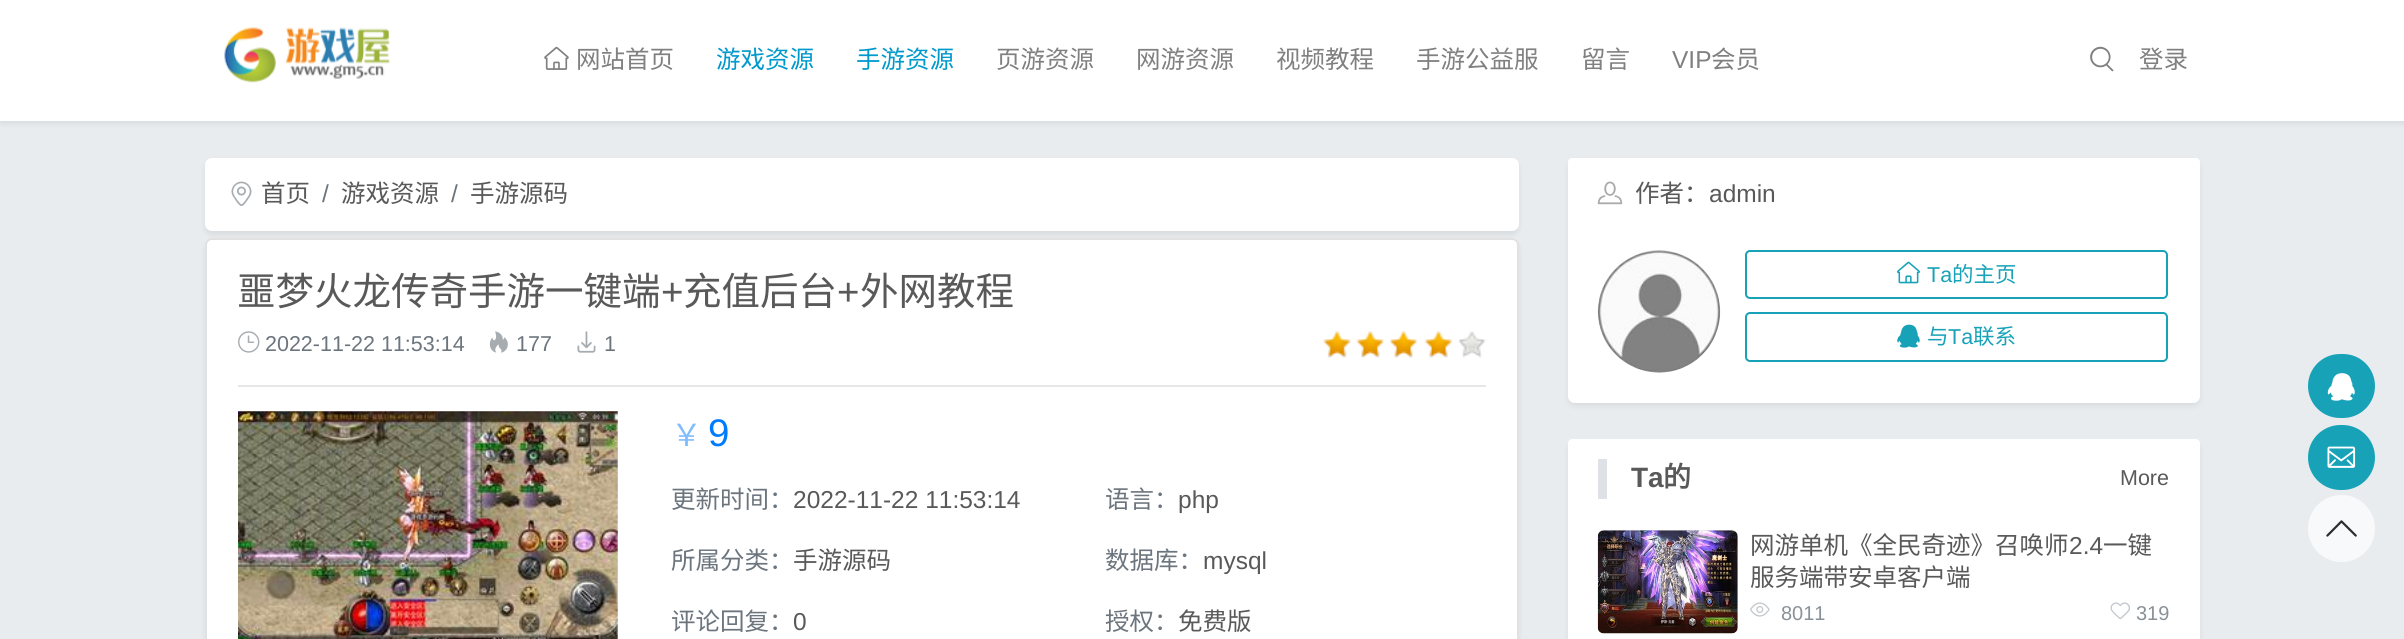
#include <cairo/cairo.h>
#include <math.h>
#include <stddef.h>


static void rounded_rect(cairo_t *cr, double x, double y, double w, double h, double r) {
  cairo_new_sub_path(cr);
  cairo_arc(cr, x + w - r, y + h - r, r, 0, M_PI / 2);
  cairo_arc(cr, x + r, y + h - r, r, M_PI / 2, M_PI);
  cairo_arc(cr, x + r, y + r, r, M_PI, 1.5 * M_PI);
  cairo_arc(cr, x + w - r, y + r, r, 1.5 * M_PI, 2 * M_PI);
  cairo_close_path(cr);
}

static void draw_shadow(cairo_t *cr, double x, double y, double w, double h, double r, double blur, double alpha) {
  cairo_push_group_with_content(cr, CAIRO_CONTENT_ALPHA);
  cairo_set_operator(cr, CAIRO_OPERATOR_SOURCE);
  for (int i = 15; i >= -15 && fmin(w, h) + blur * i / 3 > 0; i -= 2) {
    double e = blur * i / 6;
    cairo_set_source_rgba(cr, 0, 0, 0, alpha * erfc((i - 1) / 8.5) / 2);
    rounded_rect(cr, x - e, y - e, w + 2 * e, h + 2 * e, fmax(0, fmin(r + e + blur * .6, fmin(w, h) / 2 + e)));
    cairo_fill(cr);
  }
  cairo_pattern_t *soft = cairo_pop_group(cr);
  cairo_mask(cr, soft);
  cairo_pattern_destroy(soft);
}

static void draw_image(cairo_t *cr, const char *path, double x, double y, double w, double h) {
  cairo_surface_t *image = cairo_image_surface_create_from_png(path);
  cairo_save(cr);
  cairo_set_source_surface(cr, image, x, y);
  cairo_rectangle(cr, x, y, w, h);
  cairo_fill(cr);
  cairo_restore(cr);
  cairo_surface_destroy(image);
}

static void draw(cairo_t *cr) {
  cairo_set_source_rgb(cr, 233 / 255.0, 236 / 255.0, 239 / 255.0);
  cairo_paint(cr);
  cairo_set_source_rgb(cr, 0, 0, 0);
  draw_shadow(cr, 0, 4, 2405, 120, 0, 3, 0.07);
  cairo_set_source_rgb(cr, 1, 1, 1);
  cairo_rectangle(cr, 0, 0, 2404, 121);
  cairo_fill(cr);
  draw_image(cr, "images/1.png", 224, 27, 166, 56);
  draw_image(cr, "images/2.png", 544, 46, 25, 24);
  draw_image(cr, "images/3.png", 2090, 46, 24, 26);
  cairo_set_source_rgb(cr, 0, 0, 0);
  draw_shadow(cr, 205, 161, 1314, 74, 7, 3, 0.07);
  cairo_set_source_rgb(cr, 1, 1, 1);
  rounded_rect(cr, 205, 158, 1314, 73, 7);
  cairo_fill(cr);
  draw_image(cr, "images/4.png", 231, 181, 21, 25);
  cairo_set_source_rgb(cr, 0, 0, 0);
  draw_shadow(cr, 205, 242, 1314, 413, 7, 3, 0.07);
  cairo_set_source_rgb(cr, 1, 1, 1);
  rounded_rect(cr, 205, 238, 1314, 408, 7);
  cairo_fill(cr);
  rounded_rect(cr, 206, 239, 1312, 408, 6);
  cairo_set_source_rgba(cr, 0, 0, 0, 0.12);
  cairo_stroke(cr);
  draw_image(cr, "images/5.png", 238, 331, 22, 22);
  draw_image(cr, "images/6.png", 489, 331, 19, 22);
  draw_image(cr, "images/7.png", 577, 331, 19, 22);
  draw_image(cr, "images/8.png", 1323, 330, 28, 28);
  draw_image(cr, "images/9.png", 1356, 330, 28, 28);
  draw_image(cr, "images/10.png", 1389, 330, 29, 28);
  draw_image(cr, "images/10.png", 1424, 330, 29, 28);
  draw_image(cr, "images/11.png", 1458, 331, 28, 27);
  cairo_set_source_rgb(cr, 230 / 255.0, 230 / 255.0, 230 / 255.0);
  cairo_rectangle(cr, 238, 385, 1248, 2);
  cairo_fill(cr);
  draw_image(cr, "images/12.png", 238, 411, 380, 228);
  cairo_set_source_rgb(cr, 0, 0, 0);
  draw_shadow(cr, 1568, 161, 632, 245, 7, 3, 0.07);
  cairo_set_source_rgb(cr, 1, 1, 1);
  rounded_rect(cr, 1568, 158, 632, 245, 7);
  cairo_fill(cr);
  cairo_new_path(cr);
  cairo_move_to(cr, 1572, 158);
  cairo_line_to(cr, 2196, 158);
  cairo_curve_to(cr, 2198, 158, 2200, 160, 2200, 162);
  cairo_line_to(cr, 2200, 214);
  cairo_line_to(cr, 1568, 214);
  cairo_line_to(cr, 1568, 162);
  cairo_curve_to(cr, 1568, 160, 1570, 158, 1572, 158);
  cairo_close_path(cr);
  cairo_fill(cr);
  draw_image(cr, "images/13.png", 1597, 181, 26, 24);
  draw_image(cr, "images/14.png", 1597, 250, 124, 123);
  rounded_rect(cr, 1746, 251, 421, 47, 4);
  cairo_set_source_rgb(cr, 23 / 255.0, 162 / 255.0, 184 / 255.0);
  cairo_stroke(cr);
  draw_image(cr, "images/15.png", 1897, 261, 23, 23);
  rounded_rect(cr, 1746, 313, 421, 48, 4);
  cairo_stroke(cr);
  draw_image(cr, "images/16.png", 1897, 324, 23, 24);
  cairo_set_source_rgb(cr, 0, 0, 0);
  draw_shadow(cr, 1568, 443, 632, 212, 7, 3, 0.07);
  cairo_set_source_rgb(cr, 1, 1, 1);
  rounded_rect(cr, 1568, 439, 632, 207, 7);
  cairo_fill(cr);
  cairo_new_path(cr);
  cairo_move_to(cr, 1572, 439);
  cairo_line_to(cr, 2196, 439);
  cairo_curve_to(cr, 2198, 439, 2200, 441, 2200, 443);
  cairo_line_to(cr, 2200, 499);
  cairo_line_to(cr, 1568, 499);
  cairo_line_to(cr, 1568, 443);
  cairo_curve_to(cr, 1568, 441, 1570, 439, 1572, 439);
  cairo_close_path(cr);
  cairo_fill(cr);
  cairo_set_source_rgb(cr, 222 / 255.0, 226 / 255.0, 230 / 255.0);
  cairo_rectangle(cr, 1598, 459, 9, 40);
  cairo_fill(cr);
  draw_image(cr, "images/17.png", 1597, 530, 141, 104);
  draw_image(cr, "images/18.png", 1750, 602, 20, 15);
  draw_image(cr, "images/19.png", 2110, 602, 20, 18);
  cairo_set_source_rgb(cr, 23 / 255.0, 162 / 255.0, 184 / 255.0);
  rounded_rect(cr, 2308, 354, 67, 64, 32);
  cairo_fill(cr);
  draw_image(cr, "images/20.png", 2327, 373, 28, 28);
  rounded_rect(cr, 2308, 425, 67, 65, 32.5);
  cairo_fill(cr);
  draw_image(cr, "images/21.png", 2327, 446, 29, 22);
  cairo_set_source_rgb(cr, 248 / 255.0, 249 / 255.0, 250 / 255.0);
  cairo_arc(cr, 2341.5, 528.5, 33.5, 0, 2 * M_PI);
  cairo_fill(cr);
  draw_image(cr, "images/22.png", 2326, 520, 31, 17);
  cairo_select_font_face(cr, "Noto Sans CJK SC", CAIRO_FONT_SLANT_NORMAL, CAIRO_FONT_WEIGHT_NORMAL);
  cairo_set_font_size(cr, 24.5);
  cairo_set_source_rgb(cr, 128 / 255.0, 128 / 255.0, 128 / 255.0);
  cairo_move_to(cr, 576, 68);
  cairo_show_text(cr, "网站首页");
  cairo_set_source_rgb(cr, 0, 153 / 255.0, 204 / 255.0);
  cairo_move_to(cr, 716, 68);
  cairo_show_text(cr, "游戏资源");
  cairo_move_to(cr, 856, 68);
  cairo_show_text(cr, "手游资源");
  cairo_set_source_rgb(cr, 128 / 255.0, 128 / 255.0, 128 / 255.0);
  cairo_move_to(cr, 996, 68);
  cairo_show_text(cr, "页游资源");
  cairo_move_to(cr, 1136, 68);
  cairo_show_text(cr, "网游资源");
  cairo_move_to(cr, 1276, 68);
  cairo_show_text(cr, "视频教程");
  cairo_move_to(cr, 1416, 68);
  cairo_show_text(cr, "手游公益服");
  cairo_move_to(cr, 1581, 68);
  cairo_show_text(cr, "留言");
  cairo_select_font_face(cr, "Liberation Sans", CAIRO_FONT_SLANT_NORMAL, CAIRO_FONT_WEIGHT_NORMAL);
  cairo_move_to(cr, 1672, 68);
  cairo_show_text(cr, "VIP");
  cairo_select_font_face(cr, "Noto Sans CJK SC", CAIRO_FONT_SLANT_NORMAL, CAIRO_FONT_WEIGHT_NORMAL);
  cairo_move_to(cr, 1711, 68);
  cairo_show_text(cr, "会员");
  cairo_move_to(cr, 2139, 68);
  cairo_show_text(cr, "登录");
  cairo_set_source_rgb(cr, 89 / 255.0, 89 / 255.0, 89 / 255.0);
  cairo_move_to(cr, 261, 202);
  cairo_show_text(cr, "首页");
  cairo_select_font_face(cr, "Liberation Sans", CAIRO_FONT_SLANT_NORMAL, CAIRO_FONT_WEIGHT_NORMAL);
  cairo_set_source_rgb(cr, 108 / 255.0, 117 / 255.0, 125 / 255.0);
  cairo_move_to(cr, 322, 202);
  cairo_show_text(cr, "/");
  cairo_select_font_face(cr, "Noto Sans CJK SC", CAIRO_FONT_SLANT_NORMAL, CAIRO_FONT_WEIGHT_NORMAL);
  cairo_set_source_rgb(cr, 89 / 255.0, 89 / 255.0, 89 / 255.0);
  cairo_move_to(cr, 341, 202);
  cairo_show_text(cr, "游戏资源");
  cairo_select_font_face(cr, "Liberation Sans", CAIRO_FONT_SLANT_NORMAL, CAIRO_FONT_WEIGHT_NORMAL);
  cairo_set_source_rgb(cr, 108 / 255.0, 117 / 255.0, 125 / 255.0);
  cairo_move_to(cr, 451, 202);
  cairo_show_text(cr, "/");
  cairo_select_font_face(cr, "Noto Sans CJK SC", CAIRO_FONT_SLANT_NORMAL, CAIRO_FONT_WEIGHT_NORMAL);
  cairo_set_source_rgb(cr, 89 / 255.0, 89 / 255.0, 89 / 255.0);
  cairo_move_to(cr, 470, 202);
  cairo_show_text(cr, "手游源码");
  cairo_set_font_size(cr, 38.5);
  cairo_move_to(cr, 237, 305);
  cairo_show_text(cr, "噩梦火龙传奇手游一键端");
  cairo_select_font_face(cr, "Liberation Sans", CAIRO_FONT_SLANT_NORMAL, CAIRO_FONT_WEIGHT_NORMAL);
  cairo_move_to(cr, 661, 305);
  cairo_show_text(cr, "+");
  cairo_select_font_face(cr, "Noto Sans CJK SC", CAIRO_FONT_SLANT_NORMAL, CAIRO_FONT_WEIGHT_NORMAL);
  cairo_move_to(cr, 683, 305);
  cairo_show_text(cr, "充值后台");
  cairo_select_font_face(cr, "Liberation Sans", CAIRO_FONT_SLANT_NORMAL, CAIRO_FONT_WEIGHT_NORMAL);
  cairo_move_to(cr, 837, 305);
  cairo_show_text(cr, "+");
  cairo_select_font_face(cr, "Noto Sans CJK SC", CAIRO_FONT_SLANT_NORMAL, CAIRO_FONT_WEIGHT_NORMAL);
  cairo_move_to(cr, 860, 305);
  cairo_show_text(cr, "外网教程");
  cairo_select_font_face(cr, "Liberation Sans", CAIRO_FONT_SLANT_NORMAL, CAIRO_FONT_WEIGHT_NORMAL);
  cairo_set_font_size(cr, 21.5);
  cairo_set_source_rgb(cr, 108 / 255.0, 117 / 255.0, 125 / 255.0);
  cairo_move_to(cr, 265, 351);
  cairo_show_text(cr, "2022-11-22 11:53:14");
  cairo_move_to(cr, 516, 351);
  cairo_show_text(cr, "177");
  cairo_move_to(cr, 604, 351);
  cairo_show_text(cr, "1");
  cairo_select_font_face(cr, "Noto Sans CJK SC", CAIRO_FONT_SLANT_NORMAL, CAIRO_FONT_WEIGHT_NORMAL);
  cairo_set_font_size(cr, 31);
  cairo_set_source_rgb(cr, 128 / 255.0, 189 / 255.0, 1);
  cairo_move_to(cr, 671, 446);
  cairo_show_text(cr, "￥");
  cairo_select_font_face(cr, "Liberation Sans", CAIRO_FONT_SLANT_NORMAL, CAIRO_FONT_WEIGHT_NORMAL);
  cairo_set_font_size(cr, 38.5);
  cairo_set_source_rgb(cr, 0, 123 / 255.0, 1);
  cairo_move_to(cr, 708, 446);
  cairo_show_text(cr, "9");
  cairo_select_font_face(cr, "Noto Sans CJK SC", CAIRO_FONT_SLANT_NORMAL, CAIRO_FONT_WEIGHT_NORMAL);
  cairo_set_font_size(cr, 24.5);
  cairo_set_source_rgb(cr, 108 / 255.0, 117 / 255.0, 125 / 255.0);
  cairo_move_to(cr, 671, 508);
  cairo_show_text(cr, "更新时间：");
  cairo_select_font_face(cr, "Liberation Sans", CAIRO_FONT_SLANT_NORMAL, CAIRO_FONT_WEIGHT_NORMAL);
  cairo_set_source_rgb(cr, 89 / 255.0, 89 / 255.0, 89 / 255.0);
  cairo_move_to(cr, 793, 508);
  cairo_show_text(cr, "2022-11-22 11:53:14");
  cairo_select_font_face(cr, "Noto Sans CJK SC", CAIRO_FONT_SLANT_NORMAL, CAIRO_FONT_WEIGHT_NORMAL);
  cairo_set_source_rgb(cr, 108 / 255.0, 117 / 255.0, 125 / 255.0);
  cairo_move_to(cr, 1105, 508);
  cairo_show_text(cr, "语言：");
  cairo_select_font_face(cr, "Liberation Sans", CAIRO_FONT_SLANT_NORMAL, CAIRO_FONT_WEIGHT_NORMAL);
  cairo_set_source_rgb(cr, 89 / 255.0, 89 / 255.0, 89 / 255.0);
  cairo_move_to(cr, 1178, 508);
  cairo_show_text(cr, "php");
  cairo_select_font_face(cr, "Noto Sans CJK SC", CAIRO_FONT_SLANT_NORMAL, CAIRO_FONT_WEIGHT_NORMAL);
  cairo_set_source_rgb(cr, 108 / 255.0, 117 / 255.0, 125 / 255.0);
  cairo_move_to(cr, 671, 569);
  cairo_show_text(cr, "所属分类：");
  cairo_set_source_rgb(cr, 89 / 255.0, 89 / 255.0, 89 / 255.0);
  cairo_move_to(cr, 793, 569);
  cairo_show_text(cr, "手游源码");
  cairo_set_source_rgb(cr, 108 / 255.0, 117 / 255.0, 125 / 255.0);
  cairo_move_to(cr, 1105, 569);
  cairo_show_text(cr, "数据库：");
  cairo_select_font_face(cr, "Liberation Sans", CAIRO_FONT_SLANT_NORMAL, CAIRO_FONT_WEIGHT_NORMAL);
  cairo_set_source_rgb(cr, 89 / 255.0, 89 / 255.0, 89 / 255.0);
  cairo_move_to(cr, 1203, 569);
  cairo_show_text(cr, "mysql");
  cairo_select_font_face(cr, "Noto Sans CJK SC", CAIRO_FONT_SLANT_NORMAL, CAIRO_FONT_WEIGHT_NORMAL);
  cairo_set_source_rgb(cr, 108 / 255.0, 117 / 255.0, 125 / 255.0);
  cairo_move_to(cr, 671, 630);
  cairo_show_text(cr, "评论回复：");
  cairo_select_font_face(cr, "Liberation Sans", CAIRO_FONT_SLANT_NORMAL, CAIRO_FONT_WEIGHT_NORMAL);
  cairo_set_source_rgb(cr, 89 / 255.0, 89 / 255.0, 89 / 255.0);
  cairo_move_to(cr, 793, 630);
  cairo_show_text(cr, "0");
  cairo_select_font_face(cr, "Noto Sans CJK SC", CAIRO_FONT_SLANT_NORMAL, CAIRO_FONT_WEIGHT_NORMAL);
  cairo_set_source_rgb(cr, 108 / 255.0, 117 / 255.0, 125 / 255.0);
  cairo_move_to(cr, 1105, 630);
  cairo_show_text(cr, "授权：");
  cairo_set_source_rgb(cr, 89 / 255.0, 89 / 255.0, 89 / 255.0);
  cairo_move_to(cr, 1178, 630);
  cairo_show_text(cr, "免费版");
  cairo_move_to(cr, 1635, 202);
  cairo_show_text(cr, "作者：");
  cairo_select_font_face(cr, "Liberation Sans", CAIRO_FONT_SLANT_NORMAL, CAIRO_FONT_WEIGHT_NORMAL);
  cairo_move_to(cr, 1709, 202);
  cairo_show_text(cr, "admin");
  cairo_set_font_size(cr, 21.5);
  cairo_set_source_rgb(cr, 23 / 255.0, 162 / 255.0, 184 / 255.0);
  cairo_move_to(cr, 1927, 282);
  cairo_show_text(cr, "Ta");
  cairo_select_font_face(cr, "Noto Sans CJK SC", CAIRO_FONT_SLANT_NORMAL, CAIRO_FONT_WEIGHT_NORMAL);
  cairo_move_to(cr, 1952, 282);
  cairo_show_text(cr, "的主页");
  cairo_move_to(cr, 1927, 344);
  cairo_show_text(cr, "与");
  cairo_select_font_face(cr, "Liberation Sans", CAIRO_FONT_SLANT_NORMAL, CAIRO_FONT_WEIGHT_NORMAL);
  cairo_move_to(cr, 1948, 344);
  cairo_show_text(cr, "Ta");
  cairo_select_font_face(cr, "Noto Sans CJK SC", CAIRO_FONT_SLANT_NORMAL, CAIRO_FONT_WEIGHT_NORMAL);
  cairo_move_to(cr, 1973, 344);
  cairo_show_text(cr, "联系");
  cairo_select_font_face(cr, "Liberation Sans", CAIRO_FONT_SLANT_NORMAL, CAIRO_FONT_WEIGHT_BOLD);
  cairo_set_font_size(cr, 28);
  cairo_set_source_rgb(cr, 89 / 255.0, 89 / 255.0, 89 / 255.0);
  cairo_move_to(cr, 1631, 487);
  cairo_show_text(cr, "Ta");
  cairo_select_font_face(cr, "Noto Sans CJK SC", CAIRO_FONT_SLANT_NORMAL, CAIRO_FONT_WEIGHT_BOLD);
  cairo_move_to(cr, 1663, 487);
  cairo_show_text(cr, "的");
  cairo_select_font_face(cr, "Liberation Sans", CAIRO_FONT_SLANT_NORMAL, CAIRO_FONT_WEIGHT_NORMAL);
  cairo_set_font_size(cr, 21.5);
  cairo_move_to(cr, 2120, 485);
  cairo_show_text(cr, "More");
  cairo_select_font_face(cr, "Noto Sans CJK SC", CAIRO_FONT_SLANT_NORMAL, CAIRO_FONT_WEIGHT_NORMAL);
  cairo_set_font_size(cr, 24.5);
  cairo_move_to(cr, 1750, 554);
  cairo_show_text(cr, "网游单机《全民奇迹》召唤师");
  cairo_select_font_face(cr, "Liberation Sans", CAIRO_FONT_SLANT_NORMAL, CAIRO_FONT_WEIGHT_NORMAL);
  cairo_move_to(cr, 2069, 554);
  cairo_show_text(cr, "2.4");
  cairo_select_font_face(cr, "Noto Sans CJK SC", CAIRO_FONT_SLANT_NORMAL, CAIRO_FONT_WEIGHT_NORMAL);
  cairo_move_to(cr, 2103, 554);
  cairo_show_text(cr, "一键");
  cairo_move_to(cr, 1750, 586);
  cairo_show_text(cr, "服务端带安卓客户端");
  cairo_select_font_face(cr, "Liberation Sans", CAIRO_FONT_SLANT_NORMAL, CAIRO_FONT_WEIGHT_NORMAL);
  cairo_set_font_size(cr, 20);
  cairo_set_source_rgb(cr, 137 / 255.0, 145 / 255.0, 151 / 255.0);
  cairo_move_to(cr, 1781, 620);
  cairo_show_text(cr, "8011");
  cairo_move_to(cr, 2136, 620);
  cairo_show_text(cr, "319");
}

int main(void) {
  cairo_surface_t *surface = cairo_image_surface_create(CAIRO_FORMAT_RGB24, 2404, 639);
  cairo_t *cr = cairo_create(surface);
  cairo_font_options_t *options = cairo_font_options_create();
  cairo_font_options_set_hint_metrics(options, CAIRO_HINT_METRICS_OFF);
  cairo_font_options_set_hint_style(options, CAIRO_HINT_STYLE_NONE);
  cairo_set_font_options(cr, options);
  cairo_set_miter_limit(cr, 4);
  draw(cr);
  cairo_surface_write_to_png(surface, "out.png");
  cairo_font_options_destroy(options);
  cairo_destroy(cr);
  cairo_surface_destroy(surface);
  return 0;
}
